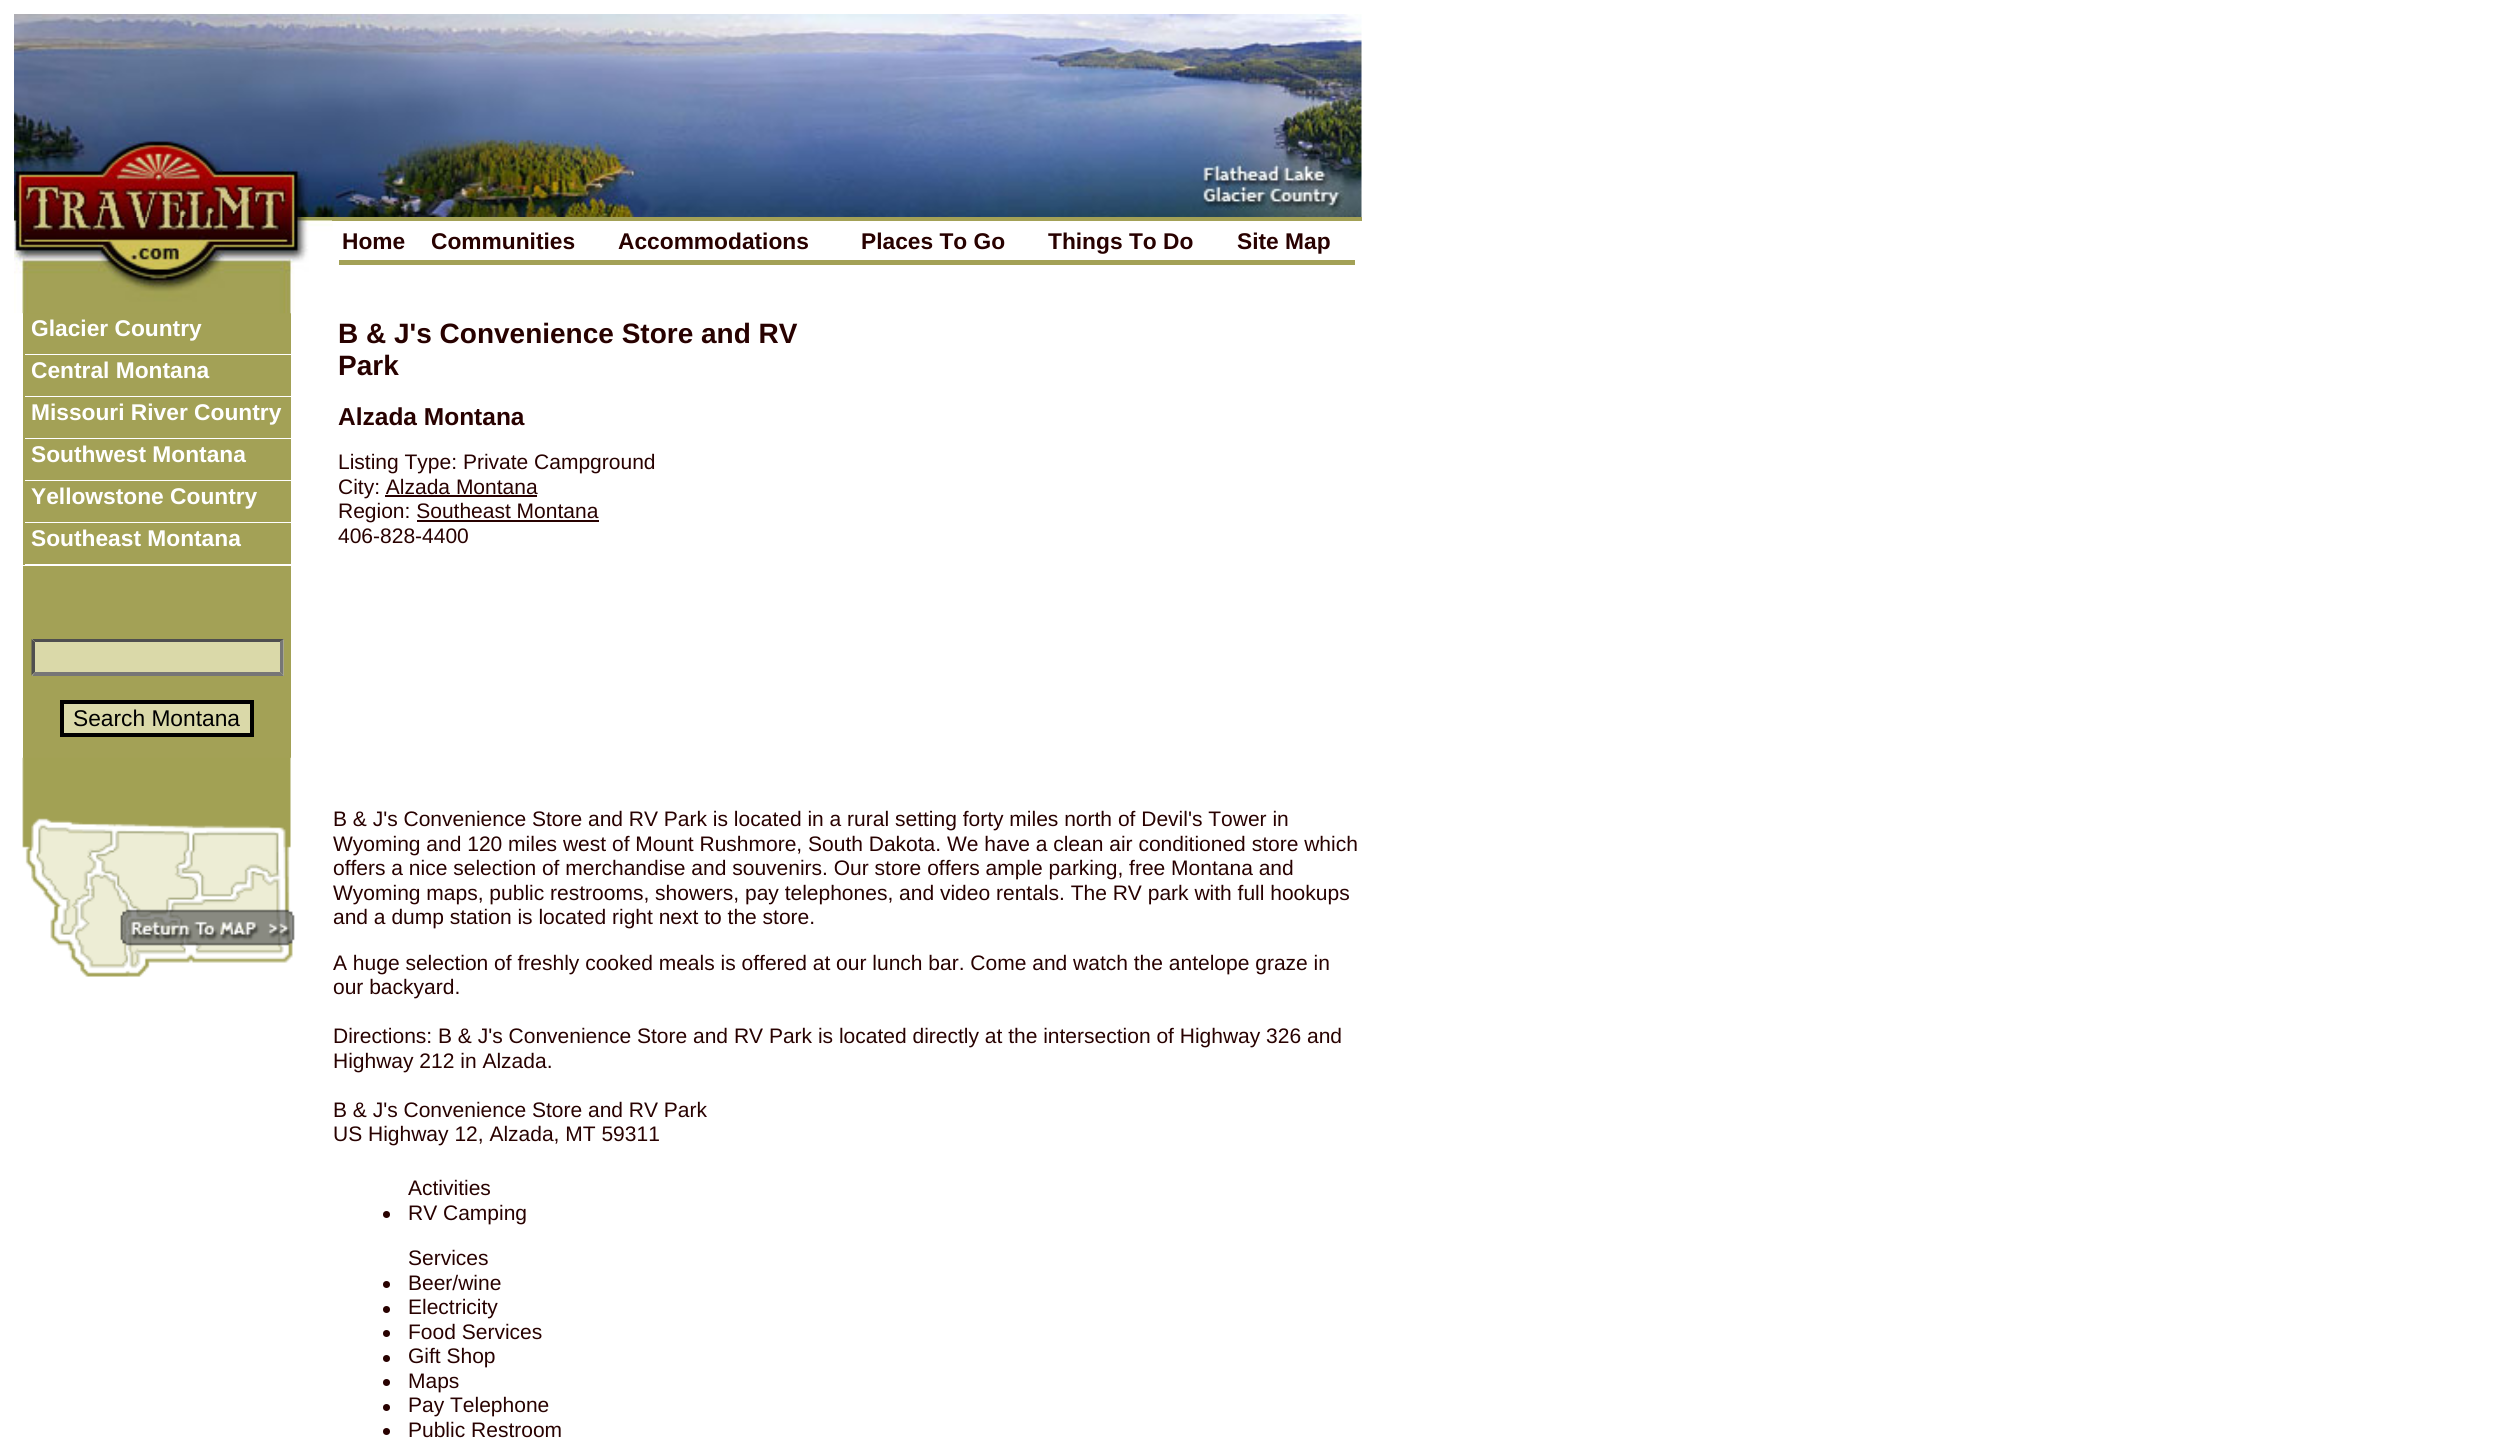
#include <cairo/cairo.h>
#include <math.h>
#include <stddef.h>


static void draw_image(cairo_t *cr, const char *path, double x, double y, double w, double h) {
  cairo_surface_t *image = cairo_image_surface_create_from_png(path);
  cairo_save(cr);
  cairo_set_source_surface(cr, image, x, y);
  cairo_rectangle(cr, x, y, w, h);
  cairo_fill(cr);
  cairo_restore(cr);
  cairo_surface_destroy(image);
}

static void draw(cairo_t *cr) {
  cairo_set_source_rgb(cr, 1, 1, 1);
  cairo_paint(cr);
  draw_image(cr, "images/1.png", 14, 14, 1348, 203);
  cairo_set_source_rgb(cr, 163 / 255.0, 161 / 255.0, 86 / 255.0);
  cairo_rectangle(cr, 23, 313, 268, 445);
  cairo_fill(cr);
  draw_image(cr, "images/2.png", 14, 217, 319, 97);
  cairo_rectangle(cr, 332, 217, 1030, 4);
  cairo_fill(cr);
  cairo_rectangle(cr, 339, 260, 1016, 5);
  cairo_fill(cr);
  cairo_set_source_rgb(cr, 1, 1, 1);
  cairo_rectangle(cr, 23, 354, 268, 1);
  cairo_fill(cr);
  cairo_set_source_rgb(cr, 163 / 255.0, 161 / 255.0, 86 / 255.0);
  cairo_rectangle(cr, 23, 354, 2, 1);
  cairo_fill(cr);
  cairo_set_source_rgb(cr, 1, 1, 1);
  cairo_rectangle(cr, 23, 396, 268, 1);
  cairo_fill(cr);
  cairo_set_source_rgb(cr, 163 / 255.0, 161 / 255.0, 86 / 255.0);
  cairo_rectangle(cr, 23, 396, 2, 1);
  cairo_fill(cr);
  cairo_set_source_rgb(cr, 1, 1, 1);
  cairo_rectangle(cr, 23, 438, 268, 1);
  cairo_fill(cr);
  cairo_set_source_rgb(cr, 163 / 255.0, 161 / 255.0, 86 / 255.0);
  cairo_rectangle(cr, 23, 438, 2, 1);
  cairo_fill(cr);
  cairo_set_source_rgb(cr, 1, 1, 1);
  cairo_rectangle(cr, 23, 480, 268, 1);
  cairo_fill(cr);
  cairo_set_source_rgb(cr, 163 / 255.0, 161 / 255.0, 86 / 255.0);
  cairo_rectangle(cr, 23, 480, 2, 1);
  cairo_fill(cr);
  cairo_set_source_rgb(cr, 1, 1, 1);
  cairo_rectangle(cr, 23, 522, 268, 1);
  cairo_fill(cr);
  cairo_set_source_rgb(cr, 163 / 255.0, 161 / 255.0, 86 / 255.0);
  cairo_rectangle(cr, 23, 522, 2, 1);
  cairo_fill(cr);
  cairo_set_source_rgb(cr, 1, 1, 1);
  cairo_rectangle(cr, 23, 564, 268, 2);
  cairo_fill(cr);
  cairo_set_source_rgb(cr, 163 / 255.0, 161 / 255.0, 86 / 255.0);
  cairo_rectangle(cr, 23, 564, 2, 1);
  cairo_fill(cr);
  cairo_set_source_rgb(cr, 218 / 255.0, 217 / 255.0, 169 / 255.0);
  cairo_rectangle(cr, 32, 639, 252, 37);
  cairo_fill(cr);
  cairo_set_source_rgb(cr, 79 / 255.0, 79 / 255.0, 79 / 255.0);
  cairo_new_path(cr);
  cairo_move_to(cr, 32, 639);
  cairo_line_to(cr, 284, 639);
  cairo_line_to(cr, 280, 642);
  cairo_line_to(cr, 35, 642);
  cairo_close_path(cr);
  cairo_fill(cr);
  cairo_set_source_rgb(cr, 118 / 255.0, 118 / 255.0, 118 / 255.0);
  cairo_new_path(cr);
  cairo_move_to(cr, 283.5, 639);
  cairo_line_to(cr, 283.5, 675.5);
  cairo_line_to(cr, 280, 672);
  cairo_line_to(cr, 280, 642);
  cairo_close_path(cr);
  cairo_fill(cr);
  cairo_new_path(cr);
  cairo_move_to(cr, 284, 676);
  cairo_line_to(cr, 32, 676);
  cairo_line_to(cr, 35, 672);
  cairo_line_to(cr, 280, 672);
  cairo_close_path(cr);
  cairo_fill(cr);
  cairo_set_source_rgb(cr, 79 / 255.0, 79 / 255.0, 79 / 255.0);
  cairo_new_path(cr);
  cairo_move_to(cr, 31.5, 675.5);
  cairo_line_to(cr, 31.5, 639);
  cairo_line_to(cr, 35, 642);
  cairo_line_to(cr, 35, 672);
  cairo_close_path(cr);
  cairo_fill(cr);
  cairo_set_source_rgb(cr, 218 / 255.0, 217 / 255.0, 169 / 255.0);
  cairo_rectangle(cr, 62, 702, 190, 33);
  cairo_fill_preserve(cr);
  cairo_set_source_rgb(cr, 0, 0, 0);
  cairo_set_line_width(cr, 4);
  cairo_stroke(cr);
  draw_image(cr, "images/3.png", 22, 757, 273, 220);
  cairo_set_source_rgb(cr, 40 / 255.0, 1 / 255.0, 0);
  cairo_rectangle(cr, 385, 495, 152, 2);
  cairo_fill(cr);
  cairo_rectangle(cr, 417, 520, 182, 2);
  cairo_fill(cr);
  cairo_arc(cr, 386.5, 1214.5, 3.5, 0, 2 * M_PI);
  cairo_fill(cr);
  cairo_arc(cr, 386.5, 1284.5, 3.5, 0, 2 * M_PI);
  cairo_fill(cr);
  cairo_arc(cr, 386.5, 1309.5, 3.5, 0, 2 * M_PI);
  cairo_fill(cr);
  cairo_arc(cr, 386.5, 1333.5, 3.5, 0, 2 * M_PI);
  cairo_fill(cr);
  cairo_arc(cr, 386.5, 1358.5, 3.5, 0, 2 * M_PI);
  cairo_fill(cr);
  cairo_arc(cr, 386.5, 1382.5, 3.5, 0, 2 * M_PI);
  cairo_fill(cr);
  cairo_arc(cr, 386.5, 1407.5, 3.5, 0, 2 * M_PI);
  cairo_fill(cr);
  cairo_arc(cr, 386.5, 1431.5, 3.5, 0, 2 * M_PI);
  cairo_fill(cr);
  cairo_select_font_face(cr, "Liberation Sans", CAIRO_FONT_SLANT_NORMAL, CAIRO_FONT_WEIGHT_BOLD);
  cairo_set_font_size(cr, 22.75);
  cairo_move_to(cr, 342, 249);
  cairo_show_text(cr, "Home");
  cairo_move_to(cr, 431, 249);
  cairo_show_text(cr, "Communities");
  cairo_move_to(cr, 618, 249);
  cairo_show_text(cr, "Accommodations");
  cairo_move_to(cr, 861, 249);
  cairo_show_text(cr, "Places To Go");
  cairo_move_to(cr, 1048, 249);
  cairo_show_text(cr, "Things To Do");
  cairo_move_to(cr, 1237, 249);
  cairo_show_text(cr, "Site Map");
  cairo_set_source_rgb(cr, 1, 1, 1);
  cairo_move_to(cr, 31, 336);
  cairo_show_text(cr, "Glacier Country");
  cairo_move_to(cr, 31, 378);
  cairo_show_text(cr, "Central Montana");
  cairo_move_to(cr, 31, 420);
  cairo_show_text(cr, "Missouri River Country");
  cairo_move_to(cr, 31, 462);
  cairo_show_text(cr, "Southwest Montana");
  cairo_move_to(cr, 31, 504);
  cairo_show_text(cr, "Yellowstone Country");
  cairo_move_to(cr, 31, 546);
  cairo_show_text(cr, "Southeast Montana");
  cairo_select_font_face(cr, "Liberation Sans", CAIRO_FONT_SLANT_NORMAL, CAIRO_FONT_WEIGHT_NORMAL);
  cairo_set_source_rgb(cr, 0, 0, 0);
  cairo_move_to(cr, 73, 726);
  cairo_show_text(cr, "Search Montana");
  cairo_select_font_face(cr, "Liberation Sans", CAIRO_FONT_SLANT_NORMAL, CAIRO_FONT_WEIGHT_BOLD);
  cairo_set_font_size(cr, 28);
  cairo_set_source_rgb(cr, 40 / 255.0, 1 / 255.0, 0);
  cairo_move_to(cr, 338, 343);
  cairo_show_text(cr, "B & J's Convenience Store and RV");
  cairo_move_to(cr, 338, 375);
  cairo_show_text(cr, "Park");
  cairo_set_font_size(cr, 24.5);
  cairo_move_to(cr, 338, 425);
  cairo_show_text(cr, "Alzada Montana");
  cairo_select_font_face(cr, "Liberation Sans", CAIRO_FONT_SLANT_NORMAL, CAIRO_FONT_WEIGHT_NORMAL);
  cairo_set_font_size(cr, 21);
  cairo_move_to(cr, 338, 469);
  cairo_show_text(cr, "Listing Type: Private Campground");
  cairo_move_to(cr, 338, 494);
  cairo_show_text(cr, "City: Alzada Montana");
  cairo_move_to(cr, 338, 518);
  cairo_show_text(cr, "Region: Southeast Montana");
  cairo_move_to(cr, 338, 543);
  cairo_show_text(cr, "406-828-4400");
  cairo_move_to(cr, 333, 826);
  cairo_show_text(cr, "B & J's Convenience Store and RV Park is located in a rural setting forty miles north of Devil's Tower in");
  cairo_move_to(cr, 333, 851);
  cairo_show_text(cr, "Wyoming and 120 miles west of Mount Rushmore, South Dakota. We have a clean air conditioned store which");
  cairo_move_to(cr, 333, 875);
  cairo_show_text(cr, "offers a nice selection of merchandise and souvenirs. Our store offers ample parking, free Montana and");
  cairo_move_to(cr, 333, 900);
  cairo_show_text(cr, "Wyoming maps, public restrooms, showers, pay telephones, and video rentals. The RV park with full hookups");
  cairo_move_to(cr, 333, 924);
  cairo_show_text(cr, "and a dump station is located right next to the store.");
  cairo_move_to(cr, 333, 970);
  cairo_show_text(cr, "A huge selection of freshly cooked meals is offered at our lunch bar. Come and watch the antelope graze in");
  cairo_move_to(cr, 333, 994);
  cairo_show_text(cr, "our backyard.");
  cairo_move_to(cr, 333, 1043);
  cairo_show_text(cr, "Directions: B & J's Convenience Store and RV Park is located directly at the intersection of Highway 326 and");
  cairo_move_to(cr, 333, 1068);
  cairo_show_text(cr, "Highway 212 in Alzada.");
  cairo_move_to(cr, 333, 1117);
  cairo_show_text(cr, "B & J's Convenience Store and RV Park");
  cairo_move_to(cr, 333, 1141);
  cairo_show_text(cr, "US Highway 12, Alzada, MT 59311");
  cairo_move_to(cr, 408, 1195);
  cairo_show_text(cr, "Activities");
  cairo_move_to(cr, 408, 1220);
  cairo_show_text(cr, "RV Camping");
  cairo_move_to(cr, 408, 1265);
  cairo_show_text(cr, "Services");
  cairo_move_to(cr, 408, 1290);
  cairo_show_text(cr, "Beer/wine");
  cairo_move_to(cr, 408, 1314);
  cairo_show_text(cr, "Electricity");
  cairo_move_to(cr, 408, 1339);
  cairo_show_text(cr, "Food Services");
  cairo_move_to(cr, 408, 1363);
  cairo_show_text(cr, "Gift Shop");
  cairo_move_to(cr, 408, 1388);
  cairo_show_text(cr, "Maps");
  cairo_move_to(cr, 408, 1412);
  cairo_show_text(cr, "Pay Telephone");
  cairo_move_to(cr, 408, 1437);
  cairo_show_text(cr, "Public Restroom");
}

int main(void) {
  cairo_surface_t *surface = cairo_image_surface_create(CAIRO_FORMAT_RGB24, 2495, 1439);
  cairo_t *cr = cairo_create(surface);
  cairo_font_options_t *options = cairo_font_options_create();
  cairo_font_options_set_hint_metrics(options, CAIRO_HINT_METRICS_OFF);
  cairo_font_options_set_hint_style(options, CAIRO_HINT_STYLE_NONE);
  cairo_set_font_options(cr, options);
  cairo_set_miter_limit(cr, 4);
  draw(cr);
  cairo_surface_write_to_png(surface, "out.png");
  cairo_font_options_destroy(options);
  cairo_destroy(cr);
  cairo_surface_destroy(surface);
  return 0;
}
